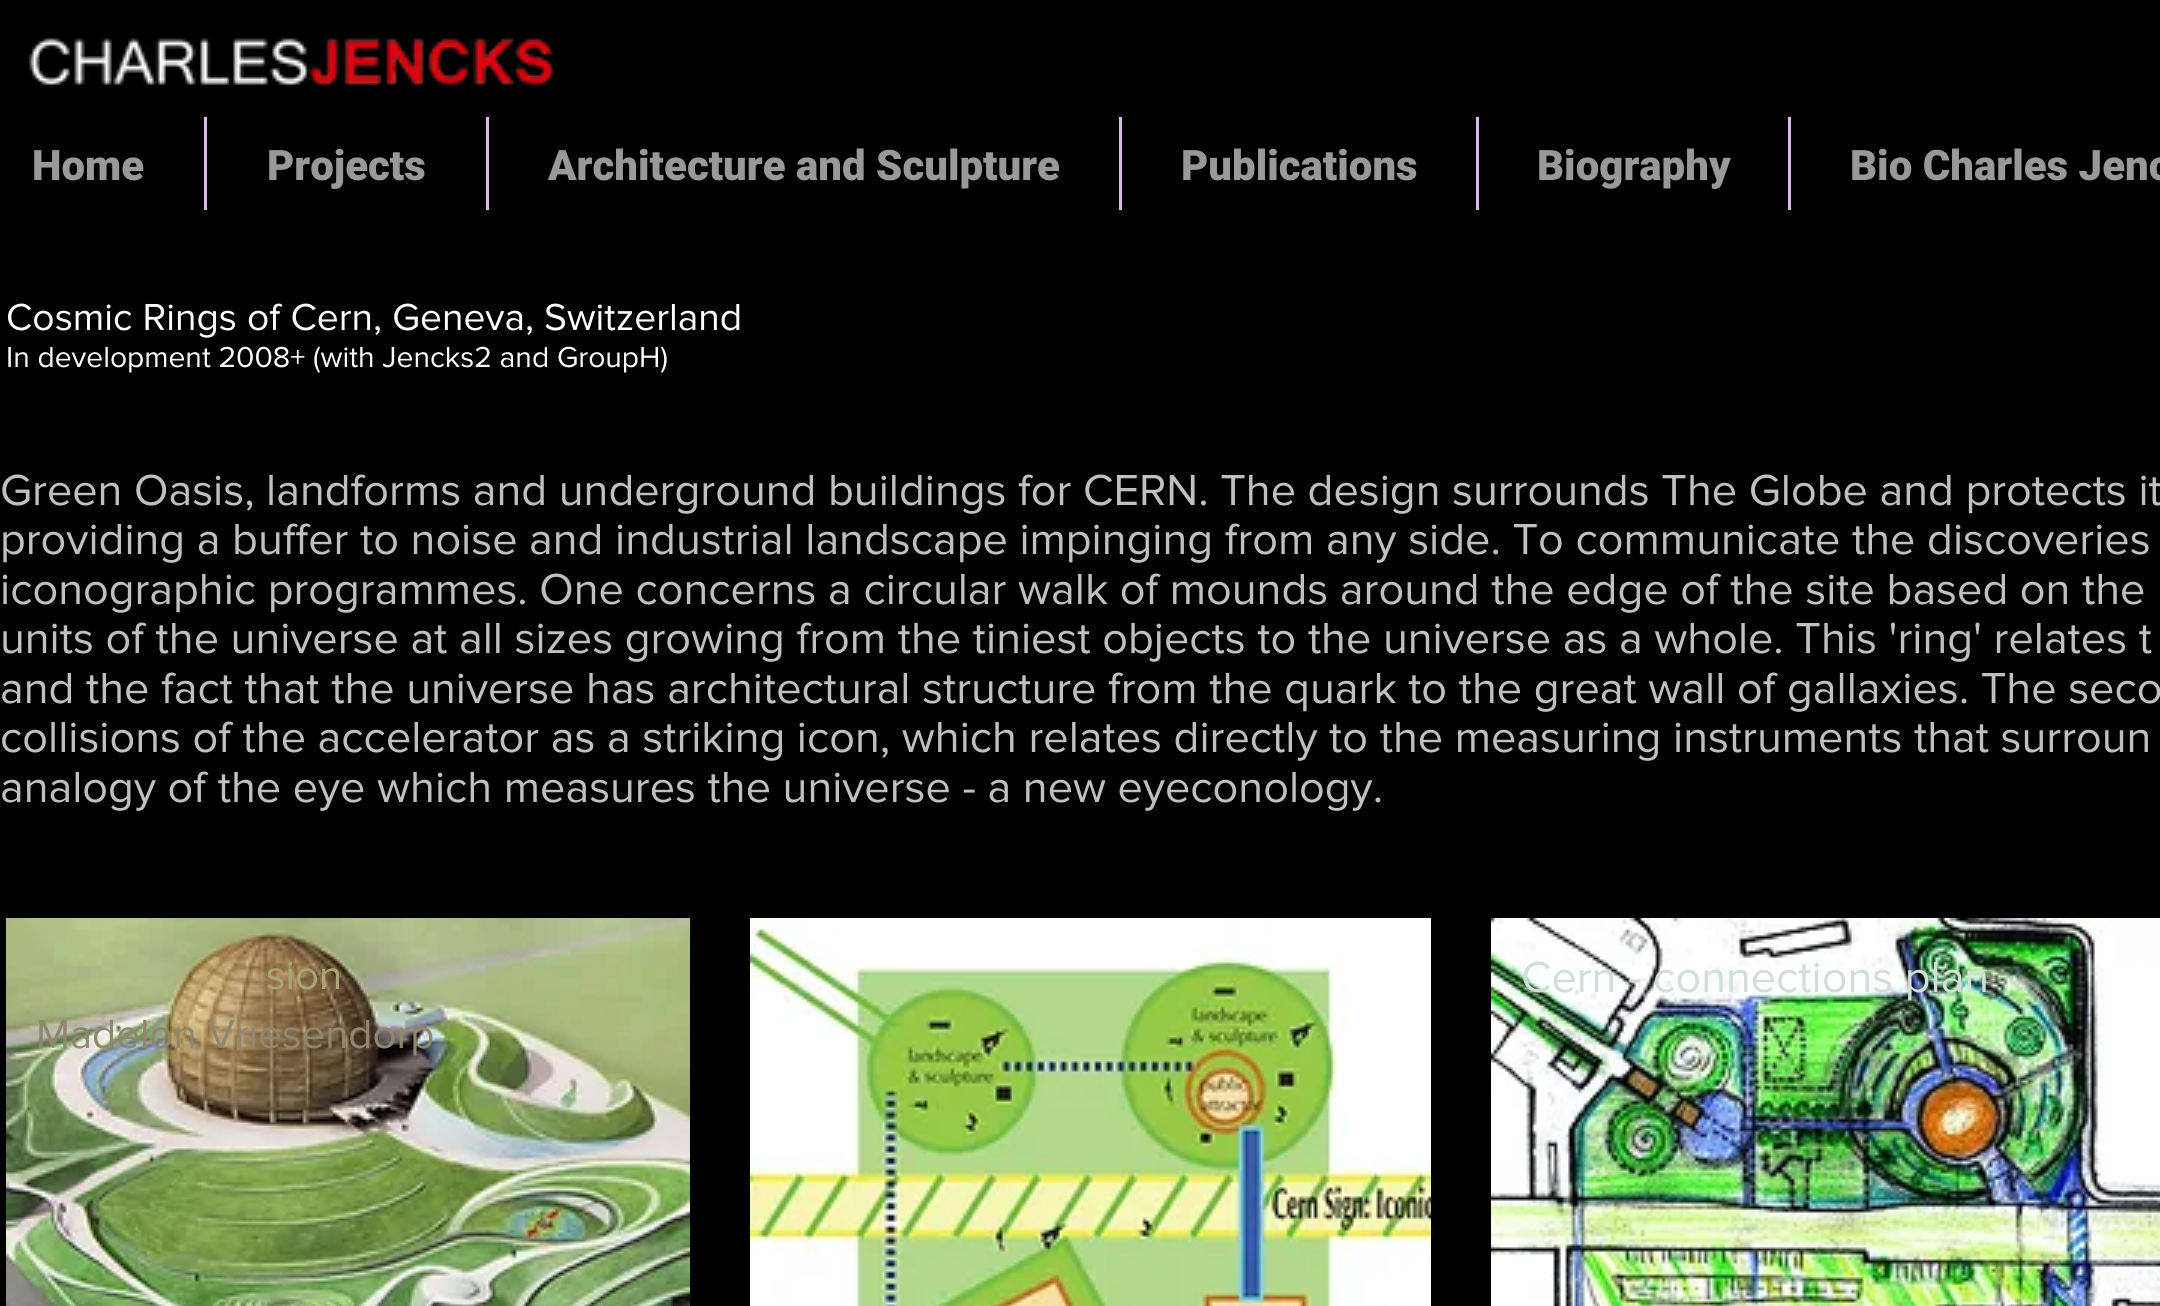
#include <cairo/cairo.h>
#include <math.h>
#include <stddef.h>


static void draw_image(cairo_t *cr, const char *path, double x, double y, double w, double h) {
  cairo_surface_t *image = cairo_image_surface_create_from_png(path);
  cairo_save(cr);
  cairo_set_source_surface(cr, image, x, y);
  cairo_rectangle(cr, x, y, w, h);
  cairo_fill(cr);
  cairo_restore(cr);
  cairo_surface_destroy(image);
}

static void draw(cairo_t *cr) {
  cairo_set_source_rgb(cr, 0, 0, 0);
  cairo_paint(cr);
  draw_image(cr, "images/1.png", 29, 38, 524, 50);
  cairo_set_source_rgb(cr, 216 / 255.0, 189 / 255.0, 226 / 255.0);
  cairo_rectangle(cr, 204, 117, 3, 99);
  cairo_fill(cr);
  cairo_rectangle(cr, 486, 117, 3, 99);
  cairo_fill(cr);
  cairo_rectangle(cr, 1119, 117, 3, 99);
  cairo_fill(cr);
  cairo_rectangle(cr, 1476, 117, 3, 99);
  cairo_fill(cr);
  cairo_rectangle(cr, 1788, 117, 3, 99);
  cairo_fill(cr);
  cairo_set_source_rgb(cr, 0, 0, 0);
  cairo_rectangle(cr, 204, 210, 1587, 6);
  cairo_fill(cr);
  draw_image(cr, "images/2.png", 6, 918, 684, 388);
  draw_image(cr, "images/3.png", 750, 918, 681, 388);
  draw_image(cr, "images/4.png", 1491, 918, 669, 388);
  cairo_select_font_face(cr, "Roboto Black", CAIRO_FONT_SLANT_NORMAL, CAIRO_FONT_WEIGHT_NORMAL);
  cairo_set_font_size(cr, 42);
  cairo_set_source_rgb(cr, 153 / 255.0, 153 / 255.0, 151 / 255.0);
  cairo_move_to(cr, 32, 180);
  cairo_show_text(cr, "Home");
  cairo_move_to(cr, 267, 180);
  cairo_show_text(cr, "Projects");
  cairo_move_to(cr, 548, 180);
  cairo_show_text(cr, "Architecture and Sculpture");
  cairo_move_to(cr, 1181, 180);
  cairo_show_text(cr, "Publications");
  cairo_move_to(cr, 1537, 180);
  cairo_show_text(cr, "Biography");
  cairo_move_to(cr, 1850, 180);
  cairo_show_text(cr, "Bio Charles Jenc");
  cairo_select_font_face(cr, "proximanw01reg", CAIRO_FONT_SLANT_NORMAL, CAIRO_FONT_WEIGHT_NORMAL);
  cairo_set_font_size(cr, 39);
  cairo_set_source_rgb(cr, 1, 1, 1);
  cairo_move_to(cr, 6, 330);
  cairo_show_text(cr, "Cosmic Rings of Cern, Geneva, Switzerland");
  cairo_set_font_size(cr, 30);
  cairo_move_to(cr, 6, 367);
  cairo_show_text(cr, "In development 2008+ (with Jencks2 and GroupH)");
  cairo_set_font_size(cr, 45);
  cairo_set_source_rgb(cr, 192 / 255.0, 192 / 255.0, 192 / 255.0);
  cairo_move_to(cr, 0, 505);
  cairo_show_text(cr, "Green Oasis, landforms and underground buildings for CERN. The design surrounds The Globe and protects it");
  cairo_move_to(cr, 0, 554);
  cairo_show_text(cr, "providing a buffer to noise and industrial landscape impinging from any side. To communicate the discoveries");
  cairo_move_to(cr, 0, 604);
  cairo_show_text(cr, "iconographic programmes. One concerns a circular walk of mounds around the edge of the site based on the");
  cairo_move_to(cr, 0, 653);
  cairo_show_text(cr, "units of the universe at all sizes growing from the tiniest objects to the universe as a whole. This 'ring' relates t");
  cairo_move_to(cr, 0, 703);
  cairo_show_text(cr, "and the fact that the universe has architectural structure from the quark to the great wall of gallaxies. The seco");
  cairo_move_to(cr, 0, 752);
  cairo_show_text(cr, "collisions of the accelerator as a striking icon, which relates directly to the measuring instruments that surroun");
  cairo_move_to(cr, 0, 802);
  cairo_show_text(cr, "analogy of the eye which measures the universe - a new eyeconology.");
  cairo_set_font_size(cr, 42);
  cairo_set_source_rgb(cr, 167 / 255.0, 166 / 255.0, 120 / 255.0);
  cairo_move_to(cr, 266, 989);
  cairo_show_text(cr, "sion");
  cairo_set_source_rgb(cr, 143 / 255.0, 135 / 255.0, 110 / 255.0);
  cairo_move_to(cr, 36, 1048);
  cairo_show_text(cr, "Madelon Vriesendorp");
  cairo_set_font_size(cr, 45);
  cairo_set_source_rgb(cr, 211 / 255.0, 222 / 255.0, 216 / 255.0);
  cairo_move_to(cr, 1521, 992);
  cairo_show_text(cr, "Cern - connections plan");
}

int main(void) {
  cairo_surface_t *surface = cairo_image_surface_create(CAIRO_FORMAT_RGB24, 2160, 1306);
  cairo_t *cr = cairo_create(surface);
  cairo_font_options_t *options = cairo_font_options_create();
  cairo_font_options_set_hint_metrics(options, CAIRO_HINT_METRICS_OFF);
  cairo_font_options_set_hint_style(options, CAIRO_HINT_STYLE_NONE);
  cairo_set_font_options(cr, options);
  cairo_set_miter_limit(cr, 4);
  draw(cr);
  cairo_surface_write_to_png(surface, "out.png");
  cairo_font_options_destroy(options);
  cairo_destroy(cr);
  cairo_surface_destroy(surface);
  return 0;
}
